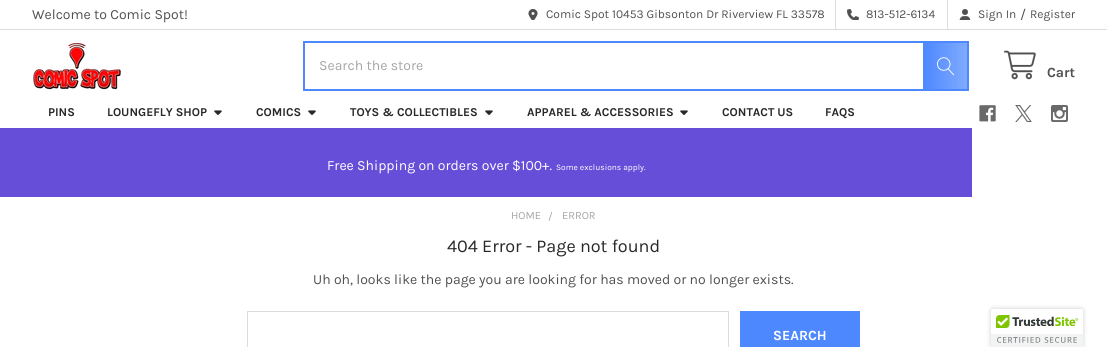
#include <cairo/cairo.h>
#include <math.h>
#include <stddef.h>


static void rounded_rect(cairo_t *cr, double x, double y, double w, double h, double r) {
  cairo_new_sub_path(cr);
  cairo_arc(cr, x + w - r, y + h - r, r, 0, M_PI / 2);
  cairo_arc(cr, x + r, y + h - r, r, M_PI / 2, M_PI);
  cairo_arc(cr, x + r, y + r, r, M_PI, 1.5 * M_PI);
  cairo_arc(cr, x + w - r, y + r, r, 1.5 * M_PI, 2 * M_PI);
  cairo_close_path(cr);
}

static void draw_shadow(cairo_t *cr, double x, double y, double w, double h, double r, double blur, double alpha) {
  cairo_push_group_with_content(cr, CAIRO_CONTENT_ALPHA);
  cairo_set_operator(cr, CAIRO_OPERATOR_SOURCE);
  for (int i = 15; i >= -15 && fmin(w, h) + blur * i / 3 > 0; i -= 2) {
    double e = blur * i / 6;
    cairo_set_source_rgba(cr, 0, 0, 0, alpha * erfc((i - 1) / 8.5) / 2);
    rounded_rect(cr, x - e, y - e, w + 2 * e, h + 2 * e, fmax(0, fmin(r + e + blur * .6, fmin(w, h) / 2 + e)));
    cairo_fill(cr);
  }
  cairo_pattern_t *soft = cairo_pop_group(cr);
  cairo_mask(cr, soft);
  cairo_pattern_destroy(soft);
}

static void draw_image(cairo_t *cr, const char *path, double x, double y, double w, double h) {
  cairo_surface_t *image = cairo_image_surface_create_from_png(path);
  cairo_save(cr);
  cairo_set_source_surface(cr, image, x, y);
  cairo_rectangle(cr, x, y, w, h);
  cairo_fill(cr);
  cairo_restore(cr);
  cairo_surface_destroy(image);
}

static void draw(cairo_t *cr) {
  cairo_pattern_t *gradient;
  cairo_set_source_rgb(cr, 1, 1, 1);
  cairo_paint(cr);
  cairo_set_source_rgb(cr, 220 / 255.0, 220 / 255.0, 220 / 255.0);
  cairo_rectangle(cr, 0, 29, 1107, 1);
  cairo_fill(cr);
  draw_image(cr, "images/1.png", 528, 9, 10, 11);
  cairo_rectangle(cr, 835, 0, 1, 29);
  cairo_fill(cr);
  draw_image(cr, "images/2.png", 847, 9, 12, 11);
  cairo_rectangle(cr, 947, 0, 1, 29);
  cairo_fill(cr);
  draw_image(cr, "images/3.png", 959, 9, 12, 11);
  draw_image(cr, "images/4.png", 33, 42, 88, 48);
  cairo_rectangle(cr, 304, 42, 664, 48);
  cairo_set_source_rgb(cr, 77 / 255.0, 136 / 255.0, 1);
  cairo_stroke(cr);
  gradient = cairo_pattern_create_linear(923, 66, 969, 66);
  cairo_pattern_add_color_stop_rgba(gradient, 0, 77 / 255.0, 136 / 255.0, 1, 1);
  cairo_pattern_add_color_stop_rgba(gradient, 1, 77 / 255.0, 136 / 255.0, 1, 0.7);
  cairo_set_source(cr, gradient);
  cairo_pattern_destroy(gradient);
  cairo_rectangle(cr, 923, 43, 44, 46);
  cairo_fill(cr);
  draw_image(cr, "images/5.png", 937, 57, 17, 19);
  draw_image(cr, "images/6.png", 1004, 50, 32, 30);
  draw_image(cr, "images/7.png", 214, 110, 8, 5);
  draw_image(cr, "images/7.png", 308, 110, 8, 5);
  draw_image(cr, "images/7.png", 485, 110, 8, 5);
  draw_image(cr, "images/7.png", 680, 110, 8, 5);
  draw_image(cr, "images/8.png", 979, 105, 17, 17);
  draw_image(cr, "images/9.png", 1015, 105, 17, 17);
  draw_image(cr, "images/10.png", 1051, 105, 17, 17);
  cairo_set_source_rgb(cr, 103 / 255.0, 78 / 255.0, 217 / 255.0);
  cairo_rectangle(cr, 0, 128, 972, 69);
  cairo_fill(cr);
  cairo_rectangle(cr, 247.5, 311.5, 481, 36);
  cairo_set_source_rgb(cr, 220 / 255.0, 220 / 255.0, 220 / 255.0);
  cairo_set_line_width(cr, 1);
  cairo_stroke(cr);
  cairo_set_source_rgb(cr, 77 / 255.0, 136 / 255.0, 1);
  cairo_rectangle(cr, 740, 311, 120, 36);
  cairo_fill(cr);
  cairo_set_source_rgb(cr, 0, 0, 0);
  draw_shadow(cr, 991, 309, 92, 38, 2, 2.5, 0.2);
  cairo_set_source_rgb(cr, 1, 1, 1);
  cairo_new_path(cr);
  cairo_move_to(cr, 993, 309);
  cairo_line_to(cr, 1081, 309);
  cairo_curve_to(cr, 1082, 309, 1083, 310, 1083, 311);
  cairo_line_to(cr, 1083, 347);
  cairo_line_to(cr, 991, 347);
  cairo_line_to(cr, 991, 311);
  cairo_curve_to(cr, 991, 310, 992, 309, 993, 309);
  cairo_close_path(cr);
  cairo_fill(cr);
  draw_image(cr, "images/11.png", 991, 315, 92, 32);
  cairo_select_font_face(cr, "Karla", CAIRO_FONT_SLANT_NORMAL, CAIRO_FONT_WEIGHT_NORMAL);
  cairo_set_font_size(cr, 14);
  cairo_set_source_rgb(cr, 80 / 255.0, 80 / 255.0, 80 / 255.0);
  cairo_move_to(cr, 32, 19);
  cairo_show_text(cr, "Welcome to Comic Spot!");
  cairo_set_font_size(cr, 12);
  cairo_move_to(cr, 546, 18);
  cairo_show_text(cr, "Comic Spot 10453 Gibsonton Dr Riverview FL 33578");
  cairo_move_to(cr, 866, 18);
  cairo_show_text(cr, "813-512-6134");
  cairo_move_to(cr, 978, 18);
  cairo_show_text(cr, "Sign In");
  cairo_set_font_size(cr, 14);
  cairo_move_to(cr, 1020, 19);
  cairo_show_text(cr, "/");
  cairo_set_font_size(cr, 12);
  cairo_move_to(cr, 1030, 18);
  cairo_show_text(cr, "Register");
  cairo_set_font_size(cr, 14);
  cairo_set_source_rgb(cr, 165 / 255.0, 165 / 255.0, 165 / 255.0);
  cairo_move_to(cr, 319, 70);
  cairo_show_text(cr, "Search the store");
  cairo_select_font_face(cr, "Karla", CAIRO_FONT_SLANT_NORMAL, CAIRO_FONT_WEIGHT_BOLD);
  cairo_set_source_rgb(cr, 80 / 255.0, 80 / 255.0, 80 / 255.0);
  cairo_move_to(cr, 1047, 77);
  cairo_show_text(cr, "Cart");
  cairo_set_font_size(cr, 12);
  cairo_set_source_rgb(cr, 40 / 255.0, 40 / 255.0, 40 / 255.0);
  cairo_move_to(cr, 48, 116);
  cairo_show_text(cr, "PINS");
  cairo_move_to(cr, 107, 116);
  cairo_show_text(cr, "LOUNGEFLY SHOP");
  cairo_move_to(cr, 256, 116);
  cairo_show_text(cr, "COMICS");
  cairo_move_to(cr, 350, 116);
  cairo_show_text(cr, "TOYS & COLLECTIBLES");
  cairo_move_to(cr, 527, 116);
  cairo_show_text(cr, "APPAREL & ACCESSORIES");
  cairo_move_to(cr, 722, 116);
  cairo_show_text(cr, "CONTACT US");
  cairo_move_to(cr, 825, 116);
  cairo_show_text(cr, "FAQS");
  cairo_select_font_face(cr, "Karla", CAIRO_FONT_SLANT_NORMAL, CAIRO_FONT_WEIGHT_NORMAL);
  cairo_set_font_size(cr, 14);
  cairo_set_source_rgb(cr, 1, 1, 1);
  cairo_move_to(cr, 327, 170);
  cairo_show_text(cr, "Free Shipping on orders over $100+.");
  cairo_set_font_size(cr, 8.4);
  cairo_move_to(cr, 556, 170);
  cairo_show_text(cr, "Some exclusions apply.");
  cairo_set_font_size(cr, 11);
  cairo_set_source_rgb(cr, 165 / 255.0, 165 / 255.0, 165 / 255.0);
  cairo_move_to(cr, 511, 219);
  cairo_show_text(cr, "HOME");
  cairo_move_to(cr, 548, 220);
  cairo_show_text(cr, "/");
  cairo_move_to(cr, 562, 219);
  cairo_show_text(cr, "ERROR");
  cairo_set_font_size(cr, 18);
  cairo_set_source_rgb(cr, 40 / 255.0, 40 / 255.0, 40 / 255.0);
  cairo_move_to(cr, 447, 252);
  cairo_show_text(cr, "404 Error - Page not found");
  cairo_set_font_size(cr, 14);
  cairo_set_source_rgb(cr, 80 / 255.0, 80 / 255.0, 80 / 255.0);
  cairo_move_to(cr, 313, 284);
  cairo_show_text(cr, "Uh oh, looks like the page you are looking for has moved or no longer exists.");
  cairo_select_font_face(cr, "Karla", CAIRO_FONT_SLANT_NORMAL, CAIRO_FONT_WEIGHT_BOLD);
  cairo_set_source_rgb(cr, 1, 1, 1);
  cairo_move_to(cr, 773, 340);
  cairo_show_text(cr, "SEARCH");
}

int main(void) {
  cairo_surface_t *surface = cairo_image_surface_create(CAIRO_FORMAT_RGB24, 1107, 347);
  cairo_t *cr = cairo_create(surface);
  cairo_font_options_t *options = cairo_font_options_create();
  cairo_font_options_set_hint_metrics(options, CAIRO_HINT_METRICS_OFF);
  cairo_font_options_set_hint_style(options, CAIRO_HINT_STYLE_NONE);
  cairo_set_font_options(cr, options);
  cairo_set_miter_limit(cr, 4);
  draw(cr);
  cairo_surface_write_to_png(surface, "out.png");
  cairo_font_options_destroy(options);
  cairo_destroy(cr);
  cairo_surface_destroy(surface);
  return 0;
}
